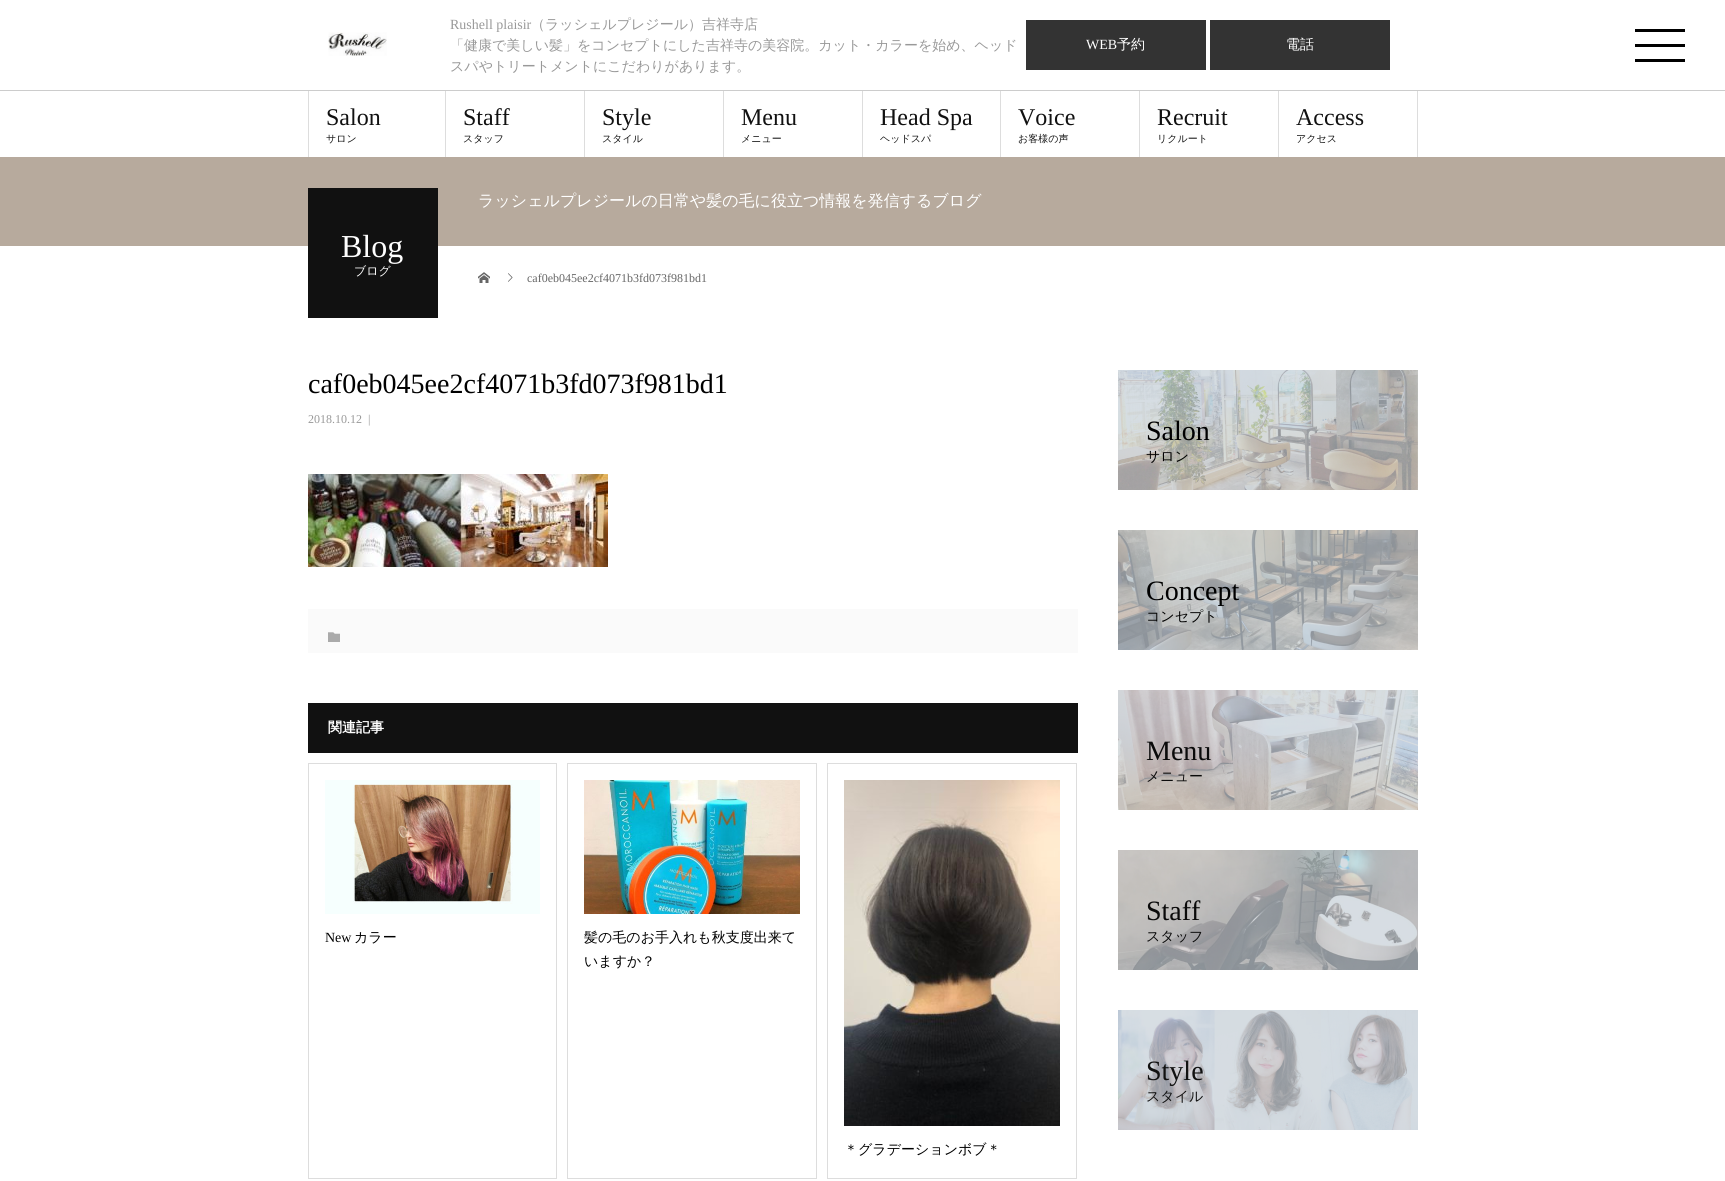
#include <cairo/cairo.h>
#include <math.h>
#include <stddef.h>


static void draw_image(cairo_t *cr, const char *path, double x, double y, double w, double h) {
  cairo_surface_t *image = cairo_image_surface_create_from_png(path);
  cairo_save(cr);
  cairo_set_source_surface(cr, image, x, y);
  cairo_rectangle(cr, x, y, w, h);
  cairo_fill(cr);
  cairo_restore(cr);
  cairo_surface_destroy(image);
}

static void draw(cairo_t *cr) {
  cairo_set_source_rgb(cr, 1, 1, 1);
  cairo_paint(cr);
  draw_image(cr, "images/1.png", 328, 32, 59, 24);
  cairo_set_source_rgb(cr, 51 / 255.0, 51 / 255.0, 51 / 255.0);
  cairo_rectangle(cr, 1026, 20, 180, 50);
  cairo_fill(cr);
  cairo_rectangle(cr, 1210, 20, 180, 50);
  cairo_fill(cr);
  cairo_set_source_rgb(cr, 0, 0, 0);
  cairo_rectangle(cr, 1635, 44, 50, 3);
  cairo_fill(cr);
  cairo_rectangle(cr, 1635, 29, 50, 3);
  cairo_fill(cr);
  cairo_rectangle(cr, 1635, 59, 50, 3);
  cairo_fill(cr);
  cairo_set_source_rgb(cr, 204 / 255.0, 204 / 255.0, 204 / 255.0);
  cairo_rectangle(cr, 0, 90, 1725, 1);
  cairo_fill(cr);
  cairo_set_source_rgb(cr, 221 / 255.0, 221 / 255.0, 221 / 255.0);
  cairo_rectangle(cr, 445, 91, 1, 66);
  cairo_fill(cr);
  cairo_rectangle(cr, 308, 91, 1, 66);
  cairo_fill(cr);
  cairo_rectangle(cr, 584, 91, 1, 66);
  cairo_fill(cr);
  cairo_rectangle(cr, 723, 91, 1, 66);
  cairo_fill(cr);
  cairo_rectangle(cr, 862, 91, 1, 66);
  cairo_fill(cr);
  cairo_rectangle(cr, 1000, 91, 1, 66);
  cairo_fill(cr);
  cairo_rectangle(cr, 1139, 91, 1, 66);
  cairo_fill(cr);
  cairo_rectangle(cr, 1278, 91, 1, 66);
  cairo_fill(cr);
  cairo_rectangle(cr, 1417, 91, 1, 66);
  cairo_fill(cr);
  cairo_set_source_rgb(cr, 183 / 255.0, 170 / 255.0, 157 / 255.0);
  cairo_rectangle(cr, 0, 157, 1725, 89);
  cairo_fill(cr);
  cairo_set_source_rgb(cr, 17 / 255.0, 17 / 255.0, 17 / 255.0);
  cairo_rectangle(cr, 308, 188, 130, 130);
  cairo_fill(cr);
  draw_image(cr, "images/2.png", 478, 272, 12, 11);
  draw_image(cr, "images/3.png", 508, 273, 5, 9);
  draw_image(cr, "images/4.png", 308, 474, 300, 93);
  cairo_set_source_rgb(cr, 250 / 255.0, 250 / 255.0, 250 / 255.0);
  cairo_rectangle(cr, 308, 609, 770, 44);
  cairo_fill(cr);
  draw_image(cr, "images/5.png", 328, 632, 12, 10);
  cairo_set_source_rgb(cr, 17 / 255.0, 17 / 255.0, 17 / 255.0);
  cairo_rectangle(cr, 308, 703, 770, 50);
  cairo_fill(cr);
  cairo_rectangle(cr, 308.5, 763.5, 248, 415);
  cairo_set_source_rgb(cr, 221 / 255.0, 221 / 255.0, 221 / 255.0);
  cairo_set_line_width(cr, 1);
  cairo_stroke(cr);
  draw_image(cr, "images/6.png", 325, 780, 215, 134);
  cairo_rectangle(cr, 567.5, 763.5, 249, 415);
  cairo_stroke(cr);
  draw_image(cr, "images/7.png", 584, 780, 216, 134);
  cairo_rectangle(cr, 827.5, 763.5, 249, 415);
  cairo_stroke(cr);
  draw_image(cr, "images/8.png", 844, 780, 216, 346);
  draw_image(cr, "images/9.png", 1118, 370, 300, 120);
  draw_image(cr, "images/10.png", 1118, 530, 300, 120);
  draw_image(cr, "images/11.png", 1118, 690, 300, 120);
  draw_image(cr, "images/12.png", 1118, 850, 300, 120);
  draw_image(cr, "images/13.png", 1118, 1010, 300, 120);
  cairo_select_font_face(cr, "Liberation Serif", CAIRO_FONT_SLANT_NORMAL, CAIRO_FONT_WEIGHT_NORMAL);
  cairo_set_font_size(cr, 14);
  cairo_set_source_rgb(cr, 153 / 255.0, 153 / 255.0, 153 / 255.0);
  cairo_move_to(cr, 450, 29);
  cairo_show_text(cr, "Rushell plaisir");
  cairo_select_font_face(cr, "WenQuanYi Zen Hei Medium", CAIRO_FONT_SLANT_NORMAL, CAIRO_FONT_WEIGHT_NORMAL);
  cairo_move_to(cr, 531, 29);
  cairo_show_text(cr, "（ラッシェルプレジール）吉祥寺店");
  cairo_move_to(cr, 450, 50);
  cairo_show_text(cr, "「健康で美しい髪」をコンセプトにした吉祥寺の美容院。カット・カラーを始め、ヘッド");
  cairo_move_to(cr, 450, 71);
  cairo_show_text(cr, "スパやトリートメントにこだわりがあります。");
  cairo_select_font_face(cr, "Liberation Serif", CAIRO_FONT_SLANT_NORMAL, CAIRO_FONT_WEIGHT_NORMAL);
  cairo_set_source_rgb(cr, 1, 1, 1);
  cairo_move_to(cr, 1086, 49);
  cairo_show_text(cr, "WEB");
  cairo_select_font_face(cr, "WenQuanYi Zen Hei Medium", CAIRO_FONT_SLANT_NORMAL, CAIRO_FONT_WEIGHT_NORMAL);
  cairo_move_to(cr, 1117, 49);
  cairo_show_text(cr, "予約");
  cairo_move_to(cr, 1286, 49);
  cairo_show_text(cr, "電話");
  cairo_select_font_face(cr, "Liberation Serif", CAIRO_FONT_SLANT_NORMAL, CAIRO_FONT_WEIGHT_NORMAL);
  cairo_set_font_size(cr, 24);
  cairo_set_source_rgb(cr, 17 / 255.0, 17 / 255.0, 17 / 255.0);
  cairo_move_to(cr, 326, 125);
  cairo_show_text(cr, "Salon");
  cairo_select_font_face(cr, "WenQuanYi Zen Hei Medium", CAIRO_FONT_SLANT_NORMAL, CAIRO_FONT_WEIGHT_NORMAL);
  cairo_set_font_size(cr, 10);
  cairo_move_to(cr, 326, 142);
  cairo_show_text(cr, "サロン");
  cairo_select_font_face(cr, "Liberation Serif", CAIRO_FONT_SLANT_NORMAL, CAIRO_FONT_WEIGHT_NORMAL);
  cairo_set_font_size(cr, 24);
  cairo_move_to(cr, 463, 125);
  cairo_show_text(cr, "Staff");
  cairo_select_font_face(cr, "WenQuanYi Zen Hei Medium", CAIRO_FONT_SLANT_NORMAL, CAIRO_FONT_WEIGHT_NORMAL);
  cairo_set_font_size(cr, 10);
  cairo_move_to(cr, 463, 142);
  cairo_show_text(cr, "スタッフ");
  cairo_select_font_face(cr, "Liberation Serif", CAIRO_FONT_SLANT_NORMAL, CAIRO_FONT_WEIGHT_NORMAL);
  cairo_set_font_size(cr, 24);
  cairo_move_to(cr, 602, 125);
  cairo_show_text(cr, "Style");
  cairo_select_font_face(cr, "WenQuanYi Zen Hei Medium", CAIRO_FONT_SLANT_NORMAL, CAIRO_FONT_WEIGHT_NORMAL);
  cairo_set_font_size(cr, 10);
  cairo_move_to(cr, 602, 142);
  cairo_show_text(cr, "スタイル");
  cairo_select_font_face(cr, "Liberation Serif", CAIRO_FONT_SLANT_NORMAL, CAIRO_FONT_WEIGHT_NORMAL);
  cairo_set_font_size(cr, 24);
  cairo_move_to(cr, 741, 125);
  cairo_show_text(cr, "Menu");
  cairo_select_font_face(cr, "WenQuanYi Zen Hei Medium", CAIRO_FONT_SLANT_NORMAL, CAIRO_FONT_WEIGHT_NORMAL);
  cairo_set_font_size(cr, 10);
  cairo_move_to(cr, 741, 142);
  cairo_show_text(cr, "メニュー");
  cairo_select_font_face(cr, "Liberation Serif", CAIRO_FONT_SLANT_NORMAL, CAIRO_FONT_WEIGHT_NORMAL);
  cairo_set_font_size(cr, 24);
  cairo_move_to(cr, 880, 125);
  cairo_show_text(cr, "Head Spa");
  cairo_select_font_face(cr, "WenQuanYi Zen Hei Medium", CAIRO_FONT_SLANT_NORMAL, CAIRO_FONT_WEIGHT_NORMAL);
  cairo_set_font_size(cr, 10);
  cairo_move_to(cr, 880, 142);
  cairo_show_text(cr, "ヘッドスパ");
  cairo_select_font_face(cr, "Liberation Serif", CAIRO_FONT_SLANT_NORMAL, CAIRO_FONT_WEIGHT_NORMAL);
  cairo_set_font_size(cr, 24);
  cairo_move_to(cr, 1018, 125);
  cairo_show_text(cr, "Voice");
  cairo_select_font_face(cr, "WenQuanYi Zen Hei Medium", CAIRO_FONT_SLANT_NORMAL, CAIRO_FONT_WEIGHT_NORMAL);
  cairo_set_font_size(cr, 10);
  cairo_move_to(cr, 1018, 142);
  cairo_show_text(cr, "お客様の声");
  cairo_select_font_face(cr, "Liberation Serif", CAIRO_FONT_SLANT_NORMAL, CAIRO_FONT_WEIGHT_NORMAL);
  cairo_set_font_size(cr, 24);
  cairo_move_to(cr, 1157, 125);
  cairo_show_text(cr, "Recruit");
  cairo_select_font_face(cr, "WenQuanYi Zen Hei Medium", CAIRO_FONT_SLANT_NORMAL, CAIRO_FONT_WEIGHT_NORMAL);
  cairo_set_font_size(cr, 10);
  cairo_move_to(cr, 1157, 142);
  cairo_show_text(cr, "リクルート");
  cairo_select_font_face(cr, "Liberation Serif", CAIRO_FONT_SLANT_NORMAL, CAIRO_FONT_WEIGHT_NORMAL);
  cairo_set_font_size(cr, 24);
  cairo_move_to(cr, 1296, 125);
  cairo_show_text(cr, "Access");
  cairo_select_font_face(cr, "WenQuanYi Zen Hei Medium", CAIRO_FONT_SLANT_NORMAL, CAIRO_FONT_WEIGHT_NORMAL);
  cairo_set_font_size(cr, 10);
  cairo_move_to(cr, 1296, 142);
  cairo_show_text(cr, "アクセス");
  cairo_set_font_size(cr, 16);
  cairo_set_source_rgb(cr, 1, 1, 1);
  cairo_move_to(cr, 478, 206);
  cairo_show_text(cr, "ラッシェルプレジールの日常や髪の毛に役立つ情報を発信するブログ");
  cairo_select_font_face(cr, "Liberation Serif", CAIRO_FONT_SLANT_NORMAL, CAIRO_FONT_WEIGHT_NORMAL);
  cairo_set_font_size(cr, 32);
  cairo_move_to(cr, 341, 257);
  cairo_show_text(cr, "Blog");
  cairo_select_font_face(cr, "WenQuanYi Zen Hei Medium", CAIRO_FONT_SLANT_NORMAL, CAIRO_FONT_WEIGHT_NORMAL);
  cairo_set_font_size(cr, 12);
  cairo_move_to(cr, 354, 275);
  cairo_show_text(cr, "ブログ");
  cairo_select_font_face(cr, "Liberation Serif", CAIRO_FONT_SLANT_NORMAL, CAIRO_FONT_WEIGHT_NORMAL);
  cairo_set_source_rgb(cr, 102 / 255.0, 102 / 255.0, 102 / 255.0);
  cairo_move_to(cr, 527, 282);
  cairo_show_text(cr, "caf0eb045ee2cf4071b3fd073f981bd1");
  cairo_set_font_size(cr, 28);
  cairo_set_source_rgb(cr, 0, 0, 0);
  cairo_move_to(cr, 308, 393);
  cairo_show_text(cr, "caf0eb045ee2cf4071b3fd073f981bd1");
  cairo_set_font_size(cr, 12);
  cairo_set_source_rgb(cr, 153 / 255.0, 153 / 255.0, 153 / 255.0);
  cairo_move_to(cr, 308, 423);
  cairo_show_text(cr, "2018.10.12");
  cairo_move_to(cr, 368, 423);
  cairo_show_text(cr, "|");
  cairo_select_font_face(cr, "WenQuanYi Zen Hei", CAIRO_FONT_SLANT_NORMAL, CAIRO_FONT_WEIGHT_BOLD);
  cairo_set_font_size(cr, 14);
  cairo_set_source_rgb(cr, 1, 1, 1);
  cairo_move_to(cr, 328, 732);
  cairo_show_text(cr, "関連記事");
  cairo_select_font_face(cr, "Liberation Serif", CAIRO_FONT_SLANT_NORMAL, CAIRO_FONT_WEIGHT_NORMAL);
  cairo_set_source_rgb(cr, 0, 0, 0);
  cairo_move_to(cr, 325, 942);
  cairo_show_text(cr, "New");
  cairo_select_font_face(cr, "WenQuanYi Zen Hei Medium", CAIRO_FONT_SLANT_NORMAL, CAIRO_FONT_WEIGHT_NORMAL);
  cairo_move_to(cr, 354, 942);
  cairo_show_text(cr, "カラー");
  cairo_move_to(cr, 584, 942);
  cairo_show_text(cr, "髪の毛のお手入れも秋支度出来て");
  cairo_move_to(cr, 584, 966);
  cairo_show_text(cr, "いますか？");
  cairo_move_to(cr, 844, 1154);
  cairo_show_text(cr, "＊グラデーションボブ＊");
  cairo_select_font_face(cr, "Liberation Serif", CAIRO_FONT_SLANT_NORMAL, CAIRO_FONT_WEIGHT_NORMAL);
  cairo_set_font_size(cr, 28);
  cairo_move_to(cr, 1146, 440);
  cairo_show_text(cr, "Salon");
  cairo_select_font_face(cr, "WenQuanYi Zen Hei Medium", CAIRO_FONT_SLANT_NORMAL, CAIRO_FONT_WEIGHT_NORMAL);
  cairo_set_font_size(cr, 14);
  cairo_move_to(cr, 1146, 461);
  cairo_show_text(cr, "サロン");
  cairo_select_font_face(cr, "Liberation Serif", CAIRO_FONT_SLANT_NORMAL, CAIRO_FONT_WEIGHT_NORMAL);
  cairo_set_font_size(cr, 28);
  cairo_move_to(cr, 1146, 600);
  cairo_show_text(cr, "Concept");
  cairo_select_font_face(cr, "WenQuanYi Zen Hei Medium", CAIRO_FONT_SLANT_NORMAL, CAIRO_FONT_WEIGHT_NORMAL);
  cairo_set_font_size(cr, 14);
  cairo_move_to(cr, 1146, 621);
  cairo_show_text(cr, "コンセプト");
  cairo_select_font_face(cr, "Liberation Serif", CAIRO_FONT_SLANT_NORMAL, CAIRO_FONT_WEIGHT_NORMAL);
  cairo_set_font_size(cr, 28);
  cairo_set_source_rgb(cr, 10 / 255.0, 10 / 255.0, 10 / 255.0);
  cairo_move_to(cr, 1146, 760);
  cairo_show_text(cr, "Menu");
  cairo_select_font_face(cr, "WenQuanYi Zen Hei Medium", CAIRO_FONT_SLANT_NORMAL, CAIRO_FONT_WEIGHT_NORMAL);
  cairo_set_font_size(cr, 14);
  cairo_move_to(cr, 1146, 781);
  cairo_show_text(cr, "メニュー");
  cairo_select_font_face(cr, "Liberation Serif", CAIRO_FONT_SLANT_NORMAL, CAIRO_FONT_WEIGHT_NORMAL);
  cairo_set_font_size(cr, 28);
  cairo_move_to(cr, 1146, 920);
  cairo_show_text(cr, "Staff");
  cairo_select_font_face(cr, "WenQuanYi Zen Hei Medium", CAIRO_FONT_SLANT_NORMAL, CAIRO_FONT_WEIGHT_NORMAL);
  cairo_set_font_size(cr, 14);
  cairo_move_to(cr, 1146, 941);
  cairo_show_text(cr, "スタッフ");
  cairo_select_font_face(cr, "Liberation Serif", CAIRO_FONT_SLANT_NORMAL, CAIRO_FONT_WEIGHT_NORMAL);
  cairo_set_font_size(cr, 28);
  cairo_set_source_rgb(cr, 17 / 255.0, 17 / 255.0, 17 / 255.0);
  cairo_move_to(cr, 1146, 1080);
  cairo_show_text(cr, "Style");
  cairo_select_font_face(cr, "WenQuanYi Zen Hei Medium", CAIRO_FONT_SLANT_NORMAL, CAIRO_FONT_WEIGHT_NORMAL);
  cairo_set_font_size(cr, 14);
  cairo_move_to(cr, 1146, 1101);
  cairo_show_text(cr, "スタイル");
}

int main(void) {
  cairo_surface_t *surface = cairo_image_surface_create(CAIRO_FORMAT_RGB24, 1725, 1181);
  cairo_t *cr = cairo_create(surface);
  cairo_font_options_t *options = cairo_font_options_create();
  cairo_font_options_set_hint_metrics(options, CAIRO_HINT_METRICS_OFF);
  cairo_font_options_set_hint_style(options, CAIRO_HINT_STYLE_NONE);
  cairo_set_font_options(cr, options);
  cairo_set_miter_limit(cr, 4);
  draw(cr);
  cairo_surface_write_to_png(surface, "out.png");
  cairo_font_options_destroy(options);
  cairo_destroy(cr);
  cairo_surface_destroy(surface);
  return 0;
}
